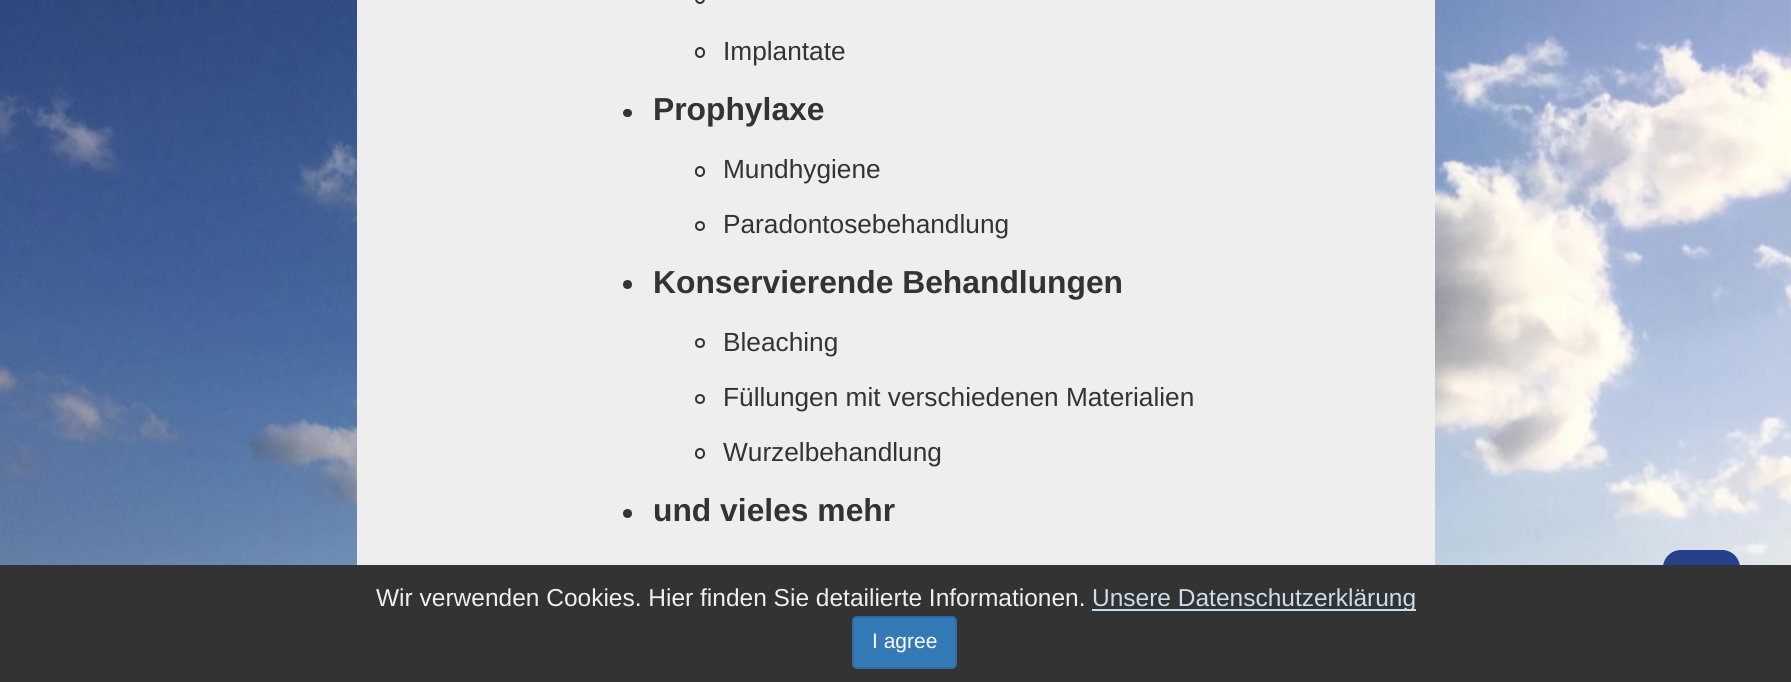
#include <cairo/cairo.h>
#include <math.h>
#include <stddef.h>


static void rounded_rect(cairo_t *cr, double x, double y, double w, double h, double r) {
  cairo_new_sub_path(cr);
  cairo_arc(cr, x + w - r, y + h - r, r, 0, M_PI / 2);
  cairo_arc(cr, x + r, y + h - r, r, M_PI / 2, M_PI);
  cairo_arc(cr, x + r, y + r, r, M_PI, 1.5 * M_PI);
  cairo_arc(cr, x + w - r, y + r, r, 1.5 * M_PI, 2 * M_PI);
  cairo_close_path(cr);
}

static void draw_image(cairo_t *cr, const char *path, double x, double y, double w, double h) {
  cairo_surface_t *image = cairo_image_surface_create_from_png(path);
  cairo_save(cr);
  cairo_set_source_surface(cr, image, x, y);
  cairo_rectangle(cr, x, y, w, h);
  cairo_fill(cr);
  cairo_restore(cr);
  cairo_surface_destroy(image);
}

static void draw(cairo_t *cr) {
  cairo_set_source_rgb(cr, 1, 1, 1);
  cairo_paint(cr);
  draw_image(cr, "images/1.png", 0, 0, 1791, 565);
  cairo_set_source_rgb(cr, 238 / 255.0, 238 / 255.0, 238 / 255.0);
  cairo_rectangle(cr, 357, 0, 1078, 565);
  cairo_fill(cr);
  rounded_rect(cr, 696, -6, 8, 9, 4);
  cairo_set_source_rgb(cr, 51 / 255.0, 51 / 255.0, 51 / 255.0);
  cairo_stroke(cr);
  rounded_rect(cr, 696, 48, 8, 9, 4);
  cairo_stroke(cr);
  rounded_rect(cr, 623, 109, 9, 8, 4);
  cairo_fill(cr);
  rounded_rect(cr, 696, 167, 8, 9, 4);
  cairo_stroke(cr);
  cairo_arc(cr, 700, 226, 4, 0, 2 * M_PI);
  cairo_stroke(cr);
  cairo_arc(cr, 627.5, 284.5, 4.5, 0, 2 * M_PI);
  cairo_fill(cr);
  cairo_arc(cr, 700, 343, 4, 0, 2 * M_PI);
  cairo_stroke(cr);
  cairo_arc(cr, 700, 399, 4, 0, 2 * M_PI);
  cairo_stroke(cr);
  rounded_rect(cr, 696, 449, 8, 9, 4);
  cairo_stroke(cr);
  cairo_arc(cr, 627.5, 513.5, 4.5, 0, 2 * M_PI);
  cairo_fill(cr);
  cairo_set_source_rgb(cr, 39 / 255.0, 64 / 255.0, 139 / 255.0);
  rounded_rect(cr, 1663, 550, 77, 98, 18);
  cairo_fill(cr);
  cairo_set_source_rgb(cr, 51 / 255.0, 51 / 255.0, 51 / 255.0);
  cairo_rectangle(cr, 0, 565, 1791, 117);
  cairo_fill(cr);
  cairo_set_source_rgb(cr, 200 / 255.0, 221 / 255.0, 238 / 255.0);
  cairo_rectangle(cr, 1092, 609, 324, 2);
  cairo_fill(cr);
  cairo_set_source_rgb(cr, 51 / 255.0, 122 / 255.0, 183 / 255.0);
  rounded_rect(cr, 853, 617, 103, 51, 4);
  cairo_fill_preserve(cr);
  cairo_set_source_rgb(cr, 46 / 255.0, 109 / 255.0, 164 / 255.0);
  cairo_stroke(cr);
  cairo_select_font_face(cr, "Liberation Sans", CAIRO_FONT_SLANT_NORMAL, CAIRO_FONT_WEIGHT_NORMAL);
  cairo_set_font_size(cr, 26.25);
  cairo_set_source_rgb(cr, 51 / 255.0, 51 / 255.0, 51 / 255.0);
  cairo_move_to(cr, 723, 60);
  cairo_show_text(cr, "Implantate");
  cairo_select_font_face(cr, "Liberation Sans", CAIRO_FONT_SLANT_NORMAL, CAIRO_FONT_WEIGHT_BOLD);
  cairo_set_font_size(cr, 31.8);
  cairo_move_to(cr, 653, 120);
  cairo_show_text(cr, "Prophylaxe");
  cairo_select_font_face(cr, "Liberation Sans", CAIRO_FONT_SLANT_NORMAL, CAIRO_FONT_WEIGHT_NORMAL);
  cairo_set_font_size(cr, 26.25);
  cairo_move_to(cr, 723, 178);
  cairo_show_text(cr, "Mundhygiene");
  cairo_move_to(cr, 723, 233);
  cairo_show_text(cr, "Paradontosebehandlung");
  cairo_select_font_face(cr, "Liberation Sans", CAIRO_FONT_SLANT_NORMAL, CAIRO_FONT_WEIGHT_BOLD);
  cairo_set_font_size(cr, 31.8);
  cairo_move_to(cr, 653, 293);
  cairo_show_text(cr, "Konservierende Behandlungen");
  cairo_select_font_face(cr, "Liberation Sans", CAIRO_FONT_SLANT_NORMAL, CAIRO_FONT_WEIGHT_NORMAL);
  cairo_set_font_size(cr, 26.25);
  cairo_move_to(cr, 723, 351);
  cairo_show_text(cr, "Bleaching");
  cairo_move_to(cr, 723, 406);
  cairo_show_text(cr, "Füllungen mit verschiedenen Materialien");
  cairo_move_to(cr, 723, 461);
  cairo_show_text(cr, "Wurzelbehandlung");
  cairo_select_font_face(cr, "Liberation Sans", CAIRO_FONT_SLANT_NORMAL, CAIRO_FONT_WEIGHT_BOLD);
  cairo_set_font_size(cr, 31.8);
  cairo_move_to(cr, 653, 521);
  cairo_show_text(cr, "und vieles mehr");
  cairo_select_font_face(cr, "Liberation Sans", CAIRO_FONT_SLANT_NORMAL, CAIRO_FONT_WEIGHT_NORMAL);
  cairo_set_font_size(cr, 24.5);
  cairo_set_source_rgb(cr, 236 / 255.0, 240 / 255.0, 241 / 255.0);
  cairo_move_to(cr, 376, 606);
  cairo_show_text(cr, "Wir verwenden Cookies. Hier finden Sie detailierte Informationen.");
  cairo_set_source_rgb(cr, 200 / 255.0, 221 / 255.0, 238 / 255.0);
  cairo_move_to(cr, 1092, 606);
  cairo_show_text(cr, "Unsere Datenschutzerklärung");
  cairo_set_font_size(cr, 21);
  cairo_set_source_rgb(cr, 1, 1, 1);
  cairo_move_to(cr, 872, 648);
  cairo_show_text(cr, "I agree");
}

int main(void) {
  cairo_surface_t *surface = cairo_image_surface_create(CAIRO_FORMAT_RGB24, 1791, 682);
  cairo_t *cr = cairo_create(surface);
  cairo_font_options_t *options = cairo_font_options_create();
  cairo_font_options_set_hint_metrics(options, CAIRO_HINT_METRICS_OFF);
  cairo_font_options_set_hint_style(options, CAIRO_HINT_STYLE_NONE);
  cairo_set_font_options(cr, options);
  cairo_set_miter_limit(cr, 4);
  draw(cr);
  cairo_surface_write_to_png(surface, "out.png");
  cairo_font_options_destroy(options);
  cairo_destroy(cr);
  cairo_surface_destroy(surface);
  return 0;
}
